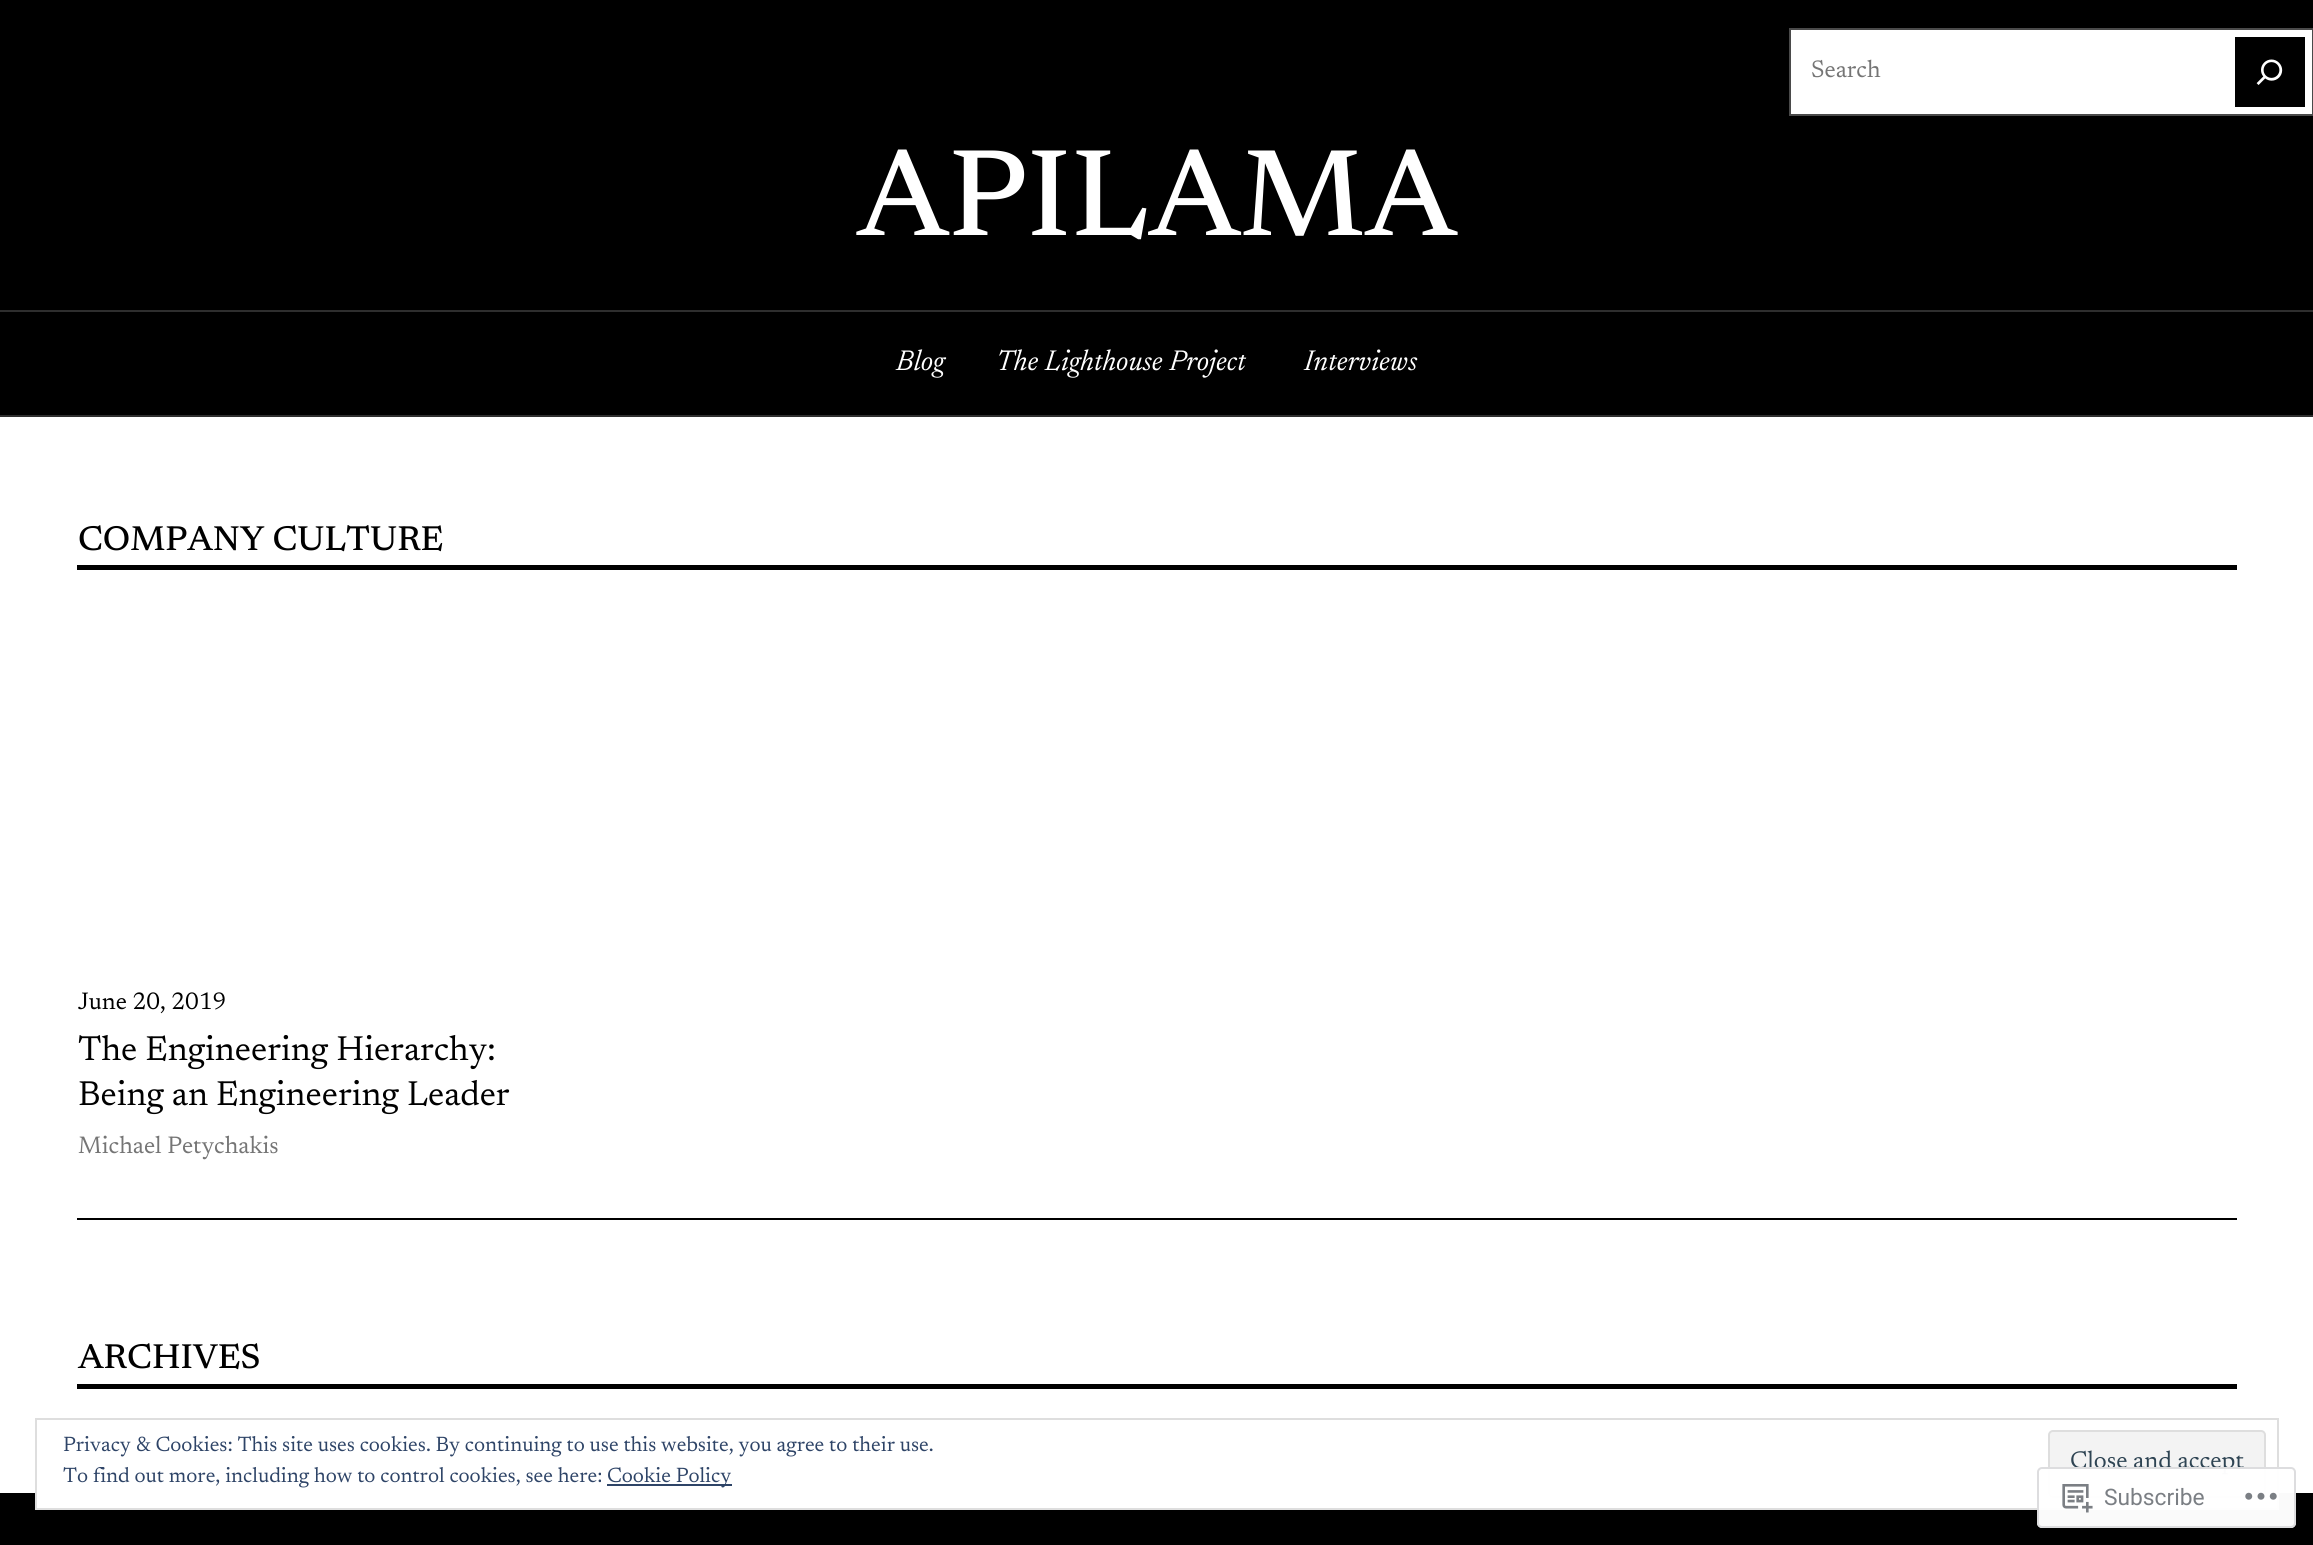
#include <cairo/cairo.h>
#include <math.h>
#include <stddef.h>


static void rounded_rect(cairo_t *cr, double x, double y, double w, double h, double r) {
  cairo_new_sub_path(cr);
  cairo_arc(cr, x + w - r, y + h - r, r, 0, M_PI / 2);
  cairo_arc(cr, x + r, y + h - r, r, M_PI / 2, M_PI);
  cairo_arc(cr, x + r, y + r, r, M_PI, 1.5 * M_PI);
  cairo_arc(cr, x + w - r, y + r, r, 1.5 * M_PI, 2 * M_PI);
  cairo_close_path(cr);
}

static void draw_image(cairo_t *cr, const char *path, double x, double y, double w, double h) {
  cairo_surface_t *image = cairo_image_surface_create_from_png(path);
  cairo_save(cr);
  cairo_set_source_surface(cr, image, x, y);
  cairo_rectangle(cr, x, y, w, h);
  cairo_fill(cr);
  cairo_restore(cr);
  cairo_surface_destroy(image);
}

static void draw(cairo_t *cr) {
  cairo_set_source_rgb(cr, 1, 1, 1);
  cairo_paint(cr);
  cairo_set_source_rgb(cr, 0, 0, 0);
  cairo_rectangle(cr, 0, 0, 2313, 415);
  cairo_fill(cr);
  cairo_set_source_rgb(cr, 1, 1, 1);
  cairo_rectangle(cr, 1790, 29, 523, 86);
  cairo_fill_preserve(cr);
  cairo_set_source_rgb(cr, 74 / 255.0, 74 / 255.0, 74 / 255.0);
  cairo_stroke(cr);
  cairo_set_source_rgb(cr, 0, 0, 0);
  cairo_rectangle(cr, 2235, 37, 70, 70);
  cairo_fill(cr);
  draw_image(cr, "images/1.png", 2256, 59, 27, 26);
  cairo_set_source_rgb(cr, 46 / 255.0, 46 / 255.0, 46 / 255.0);
  cairo_rectangle(cr, 0, 310, 2313, 2);
  cairo_fill(cr);
  cairo_rectangle(cr, 0, 415, 2313, 2);
  cairo_fill(cr);
  cairo_set_source_rgb(cr, 0, 0, 0);
  cairo_rectangle(cr, 77, 565, 2160, 5);
  cairo_fill(cr);
  cairo_rectangle(cr, 77, 1218, 2160, 2);
  cairo_fill(cr);
  cairo_rectangle(cr, 77, 1384, 2160, 5);
  cairo_fill(cr);
  cairo_rectangle(cr, 0, 1493, 2313, 52);
  cairo_fill(cr);
  cairo_set_source_rgb(cr, 1, 1, 1);
  cairo_rectangle(cr, 37, 1493, 2240, 15);
  cairo_fill(cr);
  cairo_rectangle(cr, 36, 1419, 2242, 90);
  cairo_set_source_rgb(cr, 222 / 255.0, 222 / 255.0, 222 / 255.0);
  cairo_stroke(cr);
  cairo_set_source_rgb(cr, 243 / 255.0, 243 / 255.0, 243 / 255.0);
  rounded_rect(cr, 2049, 1431, 216, 66, 4);
  cairo_fill_preserve(cr);
  cairo_set_source_rgb(cr, 222 / 255.0, 222 / 255.0, 222 / 255.0);
  cairo_stroke(cr);
  cairo_set_source_rgb(cr, 46 / 255.0, 68 / 255.0, 103 / 255.0);
  cairo_rectangle(cr, 607, 1484, 125, 2);
  cairo_fill(cr);
  cairo_select_font_face(cr, "Newsreader", CAIRO_FONT_SLANT_NORMAL, CAIRO_FONT_WEIGHT_NORMAL);
  cairo_set_font_size(cr, 24.25);
  cairo_set_source_rgb(cr, 117 / 255.0, 117 / 255.0, 117 / 255.0);
  cairo_move_to(cr, 1811, 77);
  cairo_show_text(cr, "Search");
  cairo_select_font_face(cr, "Newsreader Medium", CAIRO_FONT_SLANT_NORMAL, CAIRO_FONT_WEIGHT_NORMAL);
  cairo_set_font_size(cr, 125);
  cairo_set_source_rgb(cr, 1, 1, 1);
  cairo_move_to(cr, 857, 235);
  cairo_show_text(cr, "APILAMA");
  cairo_select_font_face(cr, "Newsreader", CAIRO_FONT_SLANT_ITALIC, CAIRO_FONT_WEIGHT_NORMAL);
  cairo_set_font_size(cr, 29.1);
  cairo_move_to(cr, 896, 370);
  cairo_show_text(cr, "Blog");
  cairo_move_to(cr, 996, 370);
  cairo_show_text(cr, "The Lighthouse Project");
  cairo_move_to(cr, 1304, 370);
  cairo_show_text(cr, "Interviews");
  cairo_select_font_face(cr, "Newsreader Medium", CAIRO_FONT_SLANT_NORMAL, CAIRO_FONT_WEIGHT_NORMAL);
  cairo_set_font_size(cr, 35);
  cairo_set_source_rgb(cr, 0, 0, 0);
  cairo_move_to(cr, 78, 550);
  cairo_show_text(cr, "COMPANY CULTURE");
  cairo_select_font_face(cr, "Newsreader", CAIRO_FONT_SLANT_NORMAL, CAIRO_FONT_WEIGHT_NORMAL);
  cairo_set_font_size(cr, 24.25);
  cairo_move_to(cr, 78, 1009);
  cairo_show_text(cr, "June 20, 2019");
  cairo_set_font_size(cr, 35);
  cairo_move_to(cr, 78, 1060);
  cairo_show_text(cr, "The Engineering Hierarchy:");
  cairo_move_to(cr, 78, 1105);
  cairo_show_text(cr, "Being an Engineering Leader");
  cairo_set_font_size(cr, 24.25);
  cairo_set_source_rgb(cr, 117 / 255.0, 117 / 255.0, 117 / 255.0);
  cairo_move_to(cr, 78, 1153);
  cairo_show_text(cr, "Michael Petychakis");
  cairo_select_font_face(cr, "Newsreader Medium", CAIRO_FONT_SLANT_NORMAL, CAIRO_FONT_WEIGHT_NORMAL);
  cairo_set_font_size(cr, 35);
  cairo_set_source_rgb(cr, 0, 0, 0);
  cairo_move_to(cr, 78, 1368);
  cairo_show_text(cr, "ARCHIVES");
  cairo_select_font_face(cr, "Newsreader", CAIRO_FONT_SLANT_NORMAL, CAIRO_FONT_WEIGHT_NORMAL);
  cairo_set_font_size(cr, 21);
  cairo_set_source_rgb(cr, 46 / 255.0, 68 / 255.0, 103 / 255.0);
  cairo_move_to(cr, 63, 1451);
  cairo_show_text(cr, "Privacy & Cookies: This site uses cookies. By continuing to use this website, you agree to their use.");
  cairo_set_font_size(cr, 24.5);
  cairo_set_source_rgb(cr, 46 / 255.0, 68 / 255.0, 83 / 255.0);
  cairo_move_to(cr, 2070, 1468);
  cairo_show_text(cr, "Close and accept");
  cairo_set_font_size(cr, 21);
  cairo_set_source_rgb(cr, 46 / 255.0, 68 / 255.0, 103 / 255.0);
  cairo_move_to(cr, 63, 1482);
  cairo_show_text(cr, "To find out more, including how to control cookies, see here:");
  cairo_move_to(cr, 607, 1482);
  cairo_show_text(cr, "Cookie Policy");
  cairo_set_source_rgba(cr, 1, 1, 1, 0.98);
  rounded_rect(cr, 2037, 1467, 259, 61, 5);
  cairo_fill(cr);
  rounded_rect(cr, 2038, 1468, 257, 59, 4);
  cairo_set_source_rgba(cr, 220 / 255.0, 220 / 255.0, 222 / 255.0, 0.98);
  cairo_stroke(cr);
  draw_image(cr, "images/2.png", 2062, 1484, 31, 29);
  cairo_select_font_face(cr, "Roboto", CAIRO_FONT_SLANT_NORMAL, CAIRO_FONT_WEIGHT_NORMAL);
  cairo_set_font_size(cr, 22.75);
  cairo_set_source_rgb(cr, 123 / 255.0, 127 / 255.0, 132 / 255.0);
  cairo_move_to(cr, 2104, 1505);
  cairo_show_text(cr, "Subscribe");
  draw_image(cr, "images/3.png", 2245, 1492, 32, 8);
}

int main(void) {
  cairo_surface_t *surface = cairo_image_surface_create(CAIRO_FORMAT_RGB24, 2313, 1545);
  cairo_t *cr = cairo_create(surface);
  cairo_font_options_t *options = cairo_font_options_create();
  cairo_font_options_set_hint_metrics(options, CAIRO_HINT_METRICS_OFF);
  cairo_font_options_set_hint_style(options, CAIRO_HINT_STYLE_NONE);
  cairo_set_font_options(cr, options);
  cairo_set_miter_limit(cr, 4);
  draw(cr);
  cairo_surface_write_to_png(surface, "out.png");
  cairo_font_options_destroy(options);
  cairo_destroy(cr);
  cairo_surface_destroy(surface);
  return 0;
}
